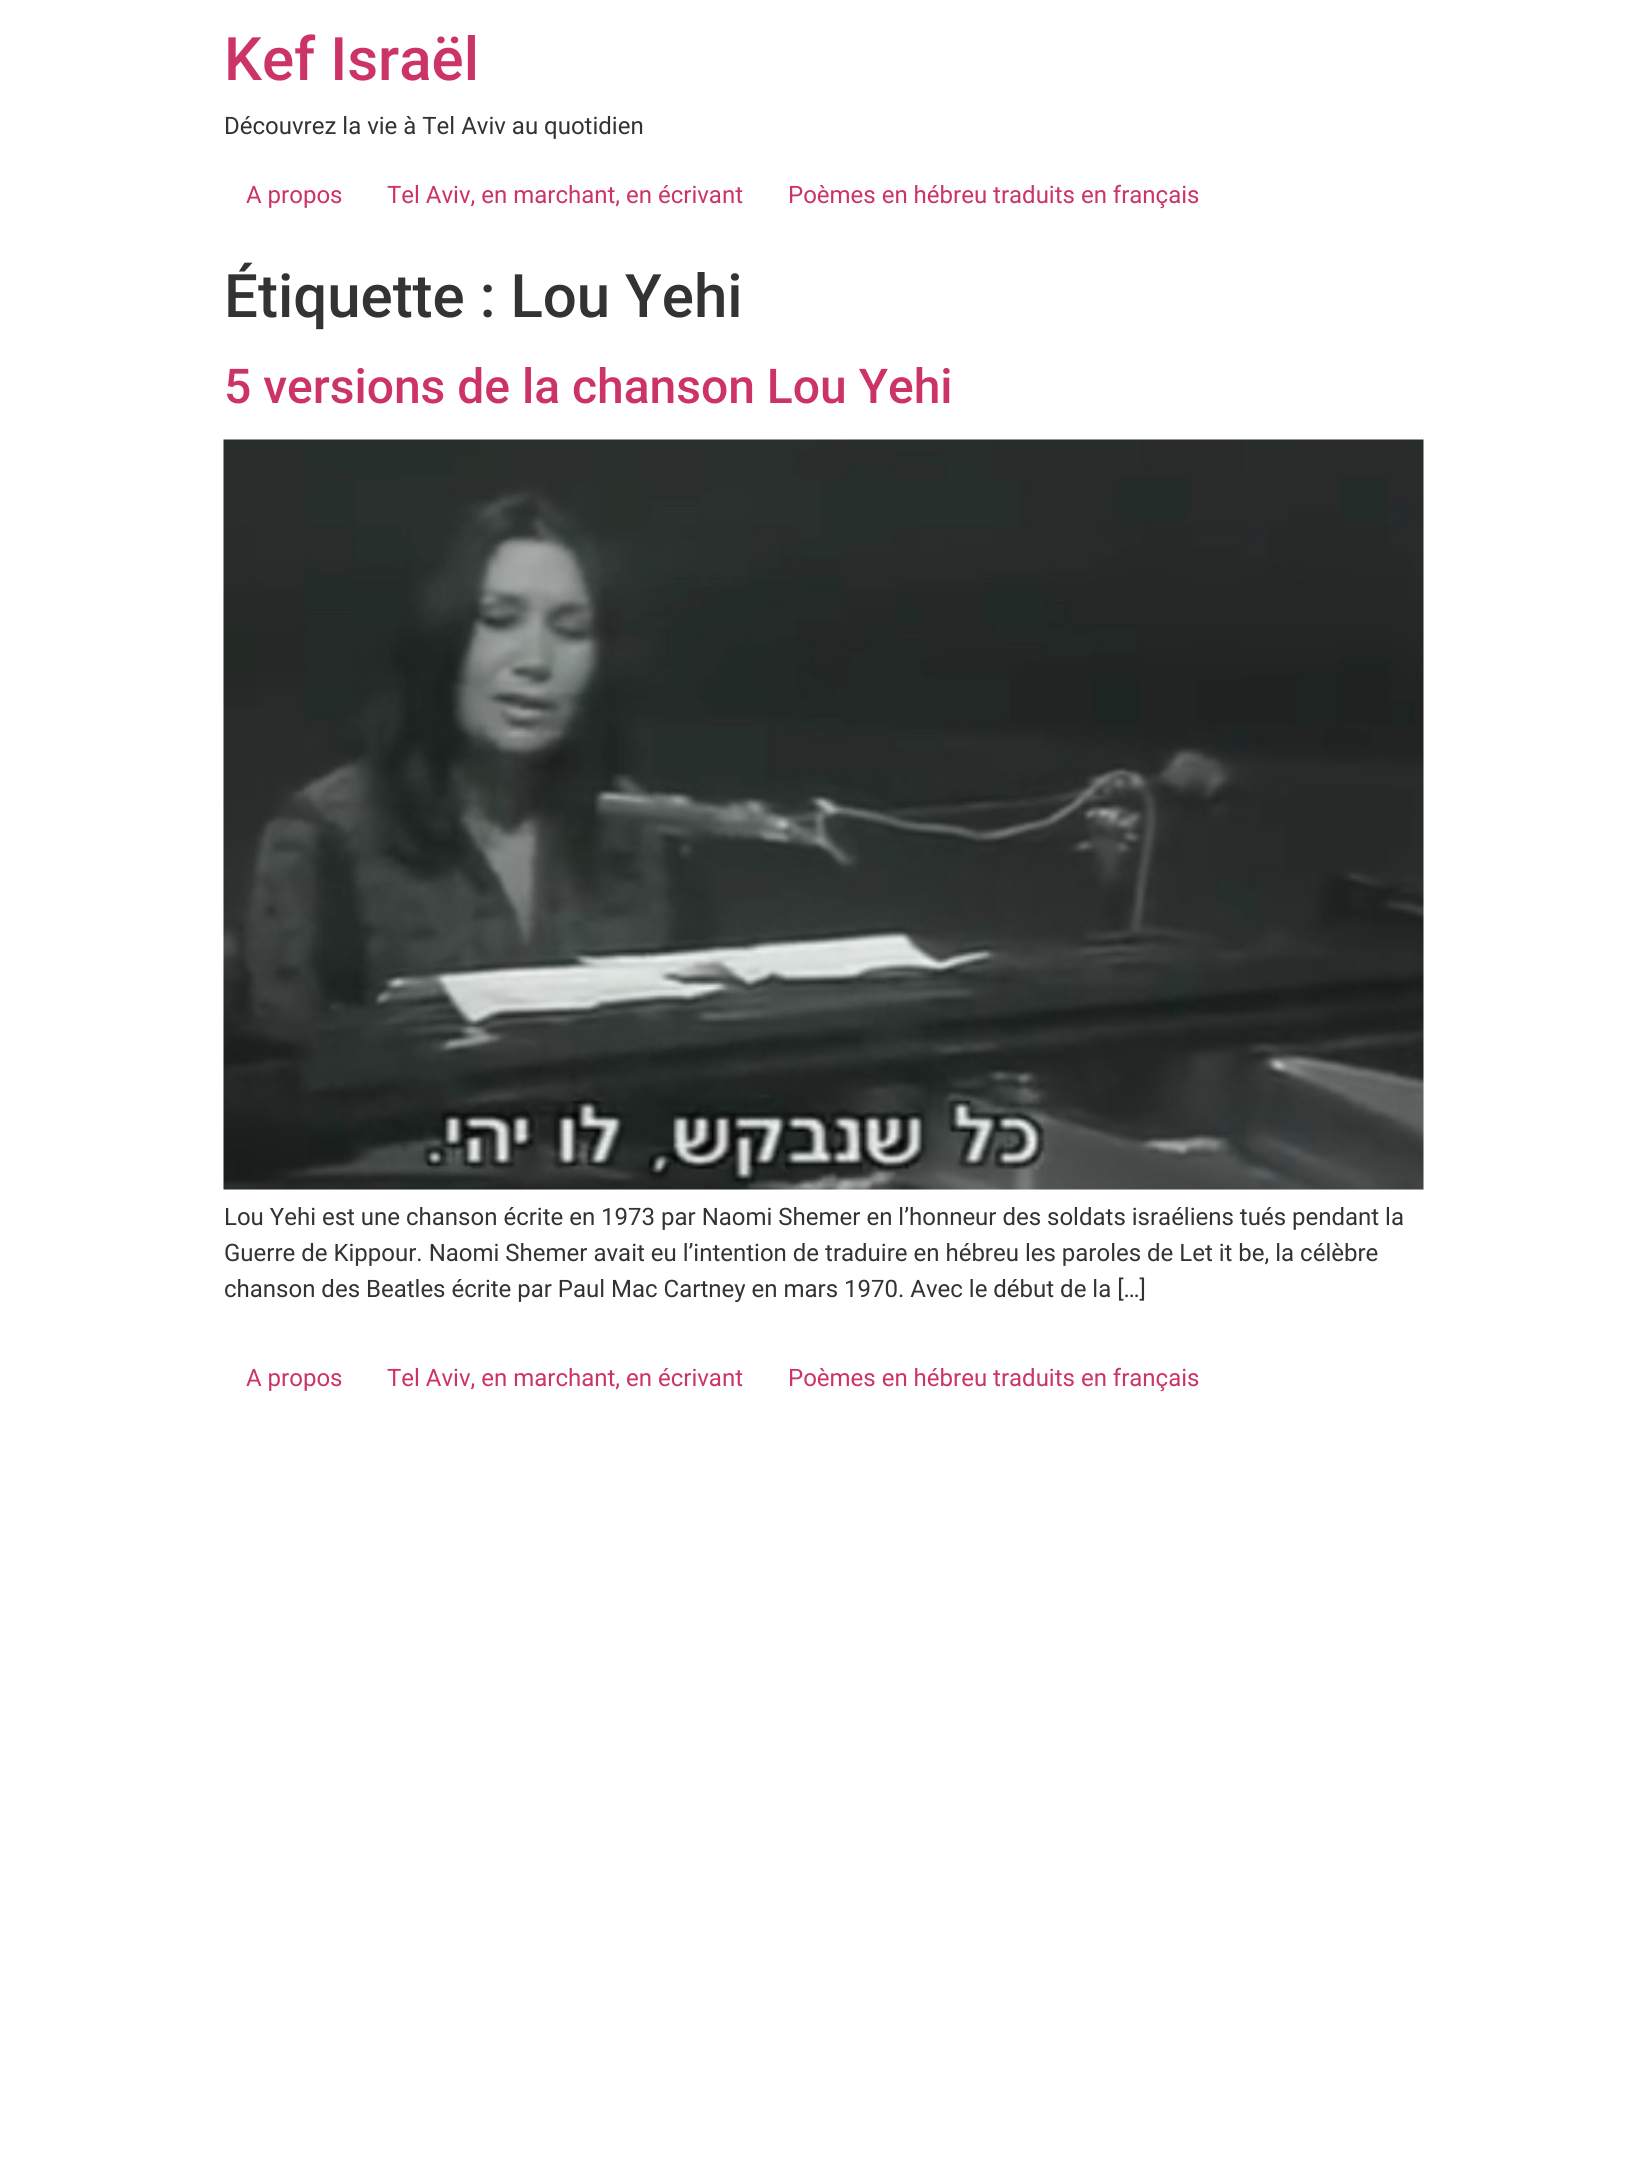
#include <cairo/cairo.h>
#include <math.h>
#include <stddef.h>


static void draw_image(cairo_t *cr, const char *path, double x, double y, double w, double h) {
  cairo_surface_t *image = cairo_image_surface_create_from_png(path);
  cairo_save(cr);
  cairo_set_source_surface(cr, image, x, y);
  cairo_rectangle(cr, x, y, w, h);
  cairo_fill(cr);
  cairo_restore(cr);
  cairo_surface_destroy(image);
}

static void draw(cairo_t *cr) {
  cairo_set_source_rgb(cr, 1, 1, 1);
  cairo_paint(cr);
  draw_image(cr, "images/1.png", 223, 439, 1201, 751);
  cairo_select_font_face(cr, "Roboto Medium", CAIRO_FONT_SLANT_NORMAL, CAIRO_FONT_WEIGHT_NORMAL);
  cairo_set_font_size(cr, 60);
  cairo_set_source_rgb(cr, 204 / 255.0, 51 / 255.0, 102 / 255.0);
  cairo_move_to(cr, 224, 80);
  cairo_show_text(cr, "Kef Israël");
  cairo_select_font_face(cr, "Roboto", CAIRO_FONT_SLANT_NORMAL, CAIRO_FONT_WEIGHT_NORMAL);
  cairo_set_font_size(cr, 24);
  cairo_set_source_rgb(cr, 51 / 255.0, 51 / 255.0, 51 / 255.0);
  cairo_move_to(cr, 224, 134);
  cairo_show_text(cr, "Découvrez la vie à Tel Aviv au quotidien");
  cairo_set_source_rgb(cr, 204 / 255.0, 51 / 255.0, 102 / 255.0);
  cairo_move_to(cr, 246, 203);
  cairo_show_text(cr, "A propos");
  cairo_move_to(cr, 387, 203);
  cairo_show_text(cr, "Tel Aviv, en marchant, en écrivant");
  cairo_move_to(cr, 788, 203);
  cairo_show_text(cr, "Poèmes en hébreu traduits en français");
  cairo_select_font_face(cr, "Roboto Medium", CAIRO_FONT_SLANT_NORMAL, CAIRO_FONT_WEIGHT_NORMAL);
  cairo_set_font_size(cr, 60);
  cairo_set_source_rgb(cr, 51 / 255.0, 51 / 255.0, 51 / 255.0);
  cairo_move_to(cr, 224, 317);
  cairo_show_text(cr, "Étiquette : Lou Yehi");
  cairo_set_font_size(cr, 48);
  cairo_set_source_rgb(cr, 204 / 255.0, 51 / 255.0, 102 / 255.0);
  cairo_move_to(cr, 224, 403);
  cairo_show_text(cr, "5 versions de la chanson Lou Yehi");
  cairo_select_font_face(cr, "Roboto", CAIRO_FONT_SLANT_NORMAL, CAIRO_FONT_WEIGHT_NORMAL);
  cairo_set_font_size(cr, 24);
  cairo_set_source_rgb(cr, 51 / 255.0, 51 / 255.0, 51 / 255.0);
  cairo_move_to(cr, 224, 1225);
  cairo_show_text(cr, "Lou Yehi est une chanson écrite en 1973 par Naomi Shemer en l’honneur des soldats israéliens tués pendant la");
  cairo_move_to(cr, 224, 1261);
  cairo_show_text(cr, "Guerre de Kippour. Naomi Shemer avait eu l’intention de traduire en hébreu les paroles de Let it be, la célèbre");
  cairo_move_to(cr, 224, 1297);
  cairo_show_text(cr, "chanson des Beatles écrite par Paul Mac Cartney en mars 1970. Avec le début de la […]");
  cairo_set_source_rgb(cr, 204 / 255.0, 51 / 255.0, 102 / 255.0);
  cairo_move_to(cr, 246, 1386);
  cairo_show_text(cr, "A propos");
  cairo_move_to(cr, 387, 1386);
  cairo_show_text(cr, "Tel Aviv, en marchant, en écrivant");
  cairo_move_to(cr, 788, 1386);
  cairo_show_text(cr, "Poèmes en hébreu traduits en français");
}

int main(void) {
  cairo_surface_t *surface = cairo_image_surface_create(CAIRO_FORMAT_RGB24, 1647, 2173);
  cairo_t *cr = cairo_create(surface);
  cairo_font_options_t *options = cairo_font_options_create();
  cairo_font_options_set_hint_metrics(options, CAIRO_HINT_METRICS_OFF);
  cairo_font_options_set_hint_style(options, CAIRO_HINT_STYLE_NONE);
  cairo_set_font_options(cr, options);
  cairo_set_miter_limit(cr, 4);
  draw(cr);
  cairo_surface_write_to_png(surface, "out.png");
  cairo_font_options_destroy(options);
  cairo_destroy(cr);
  cairo_surface_destroy(surface);
  return 0;
}
